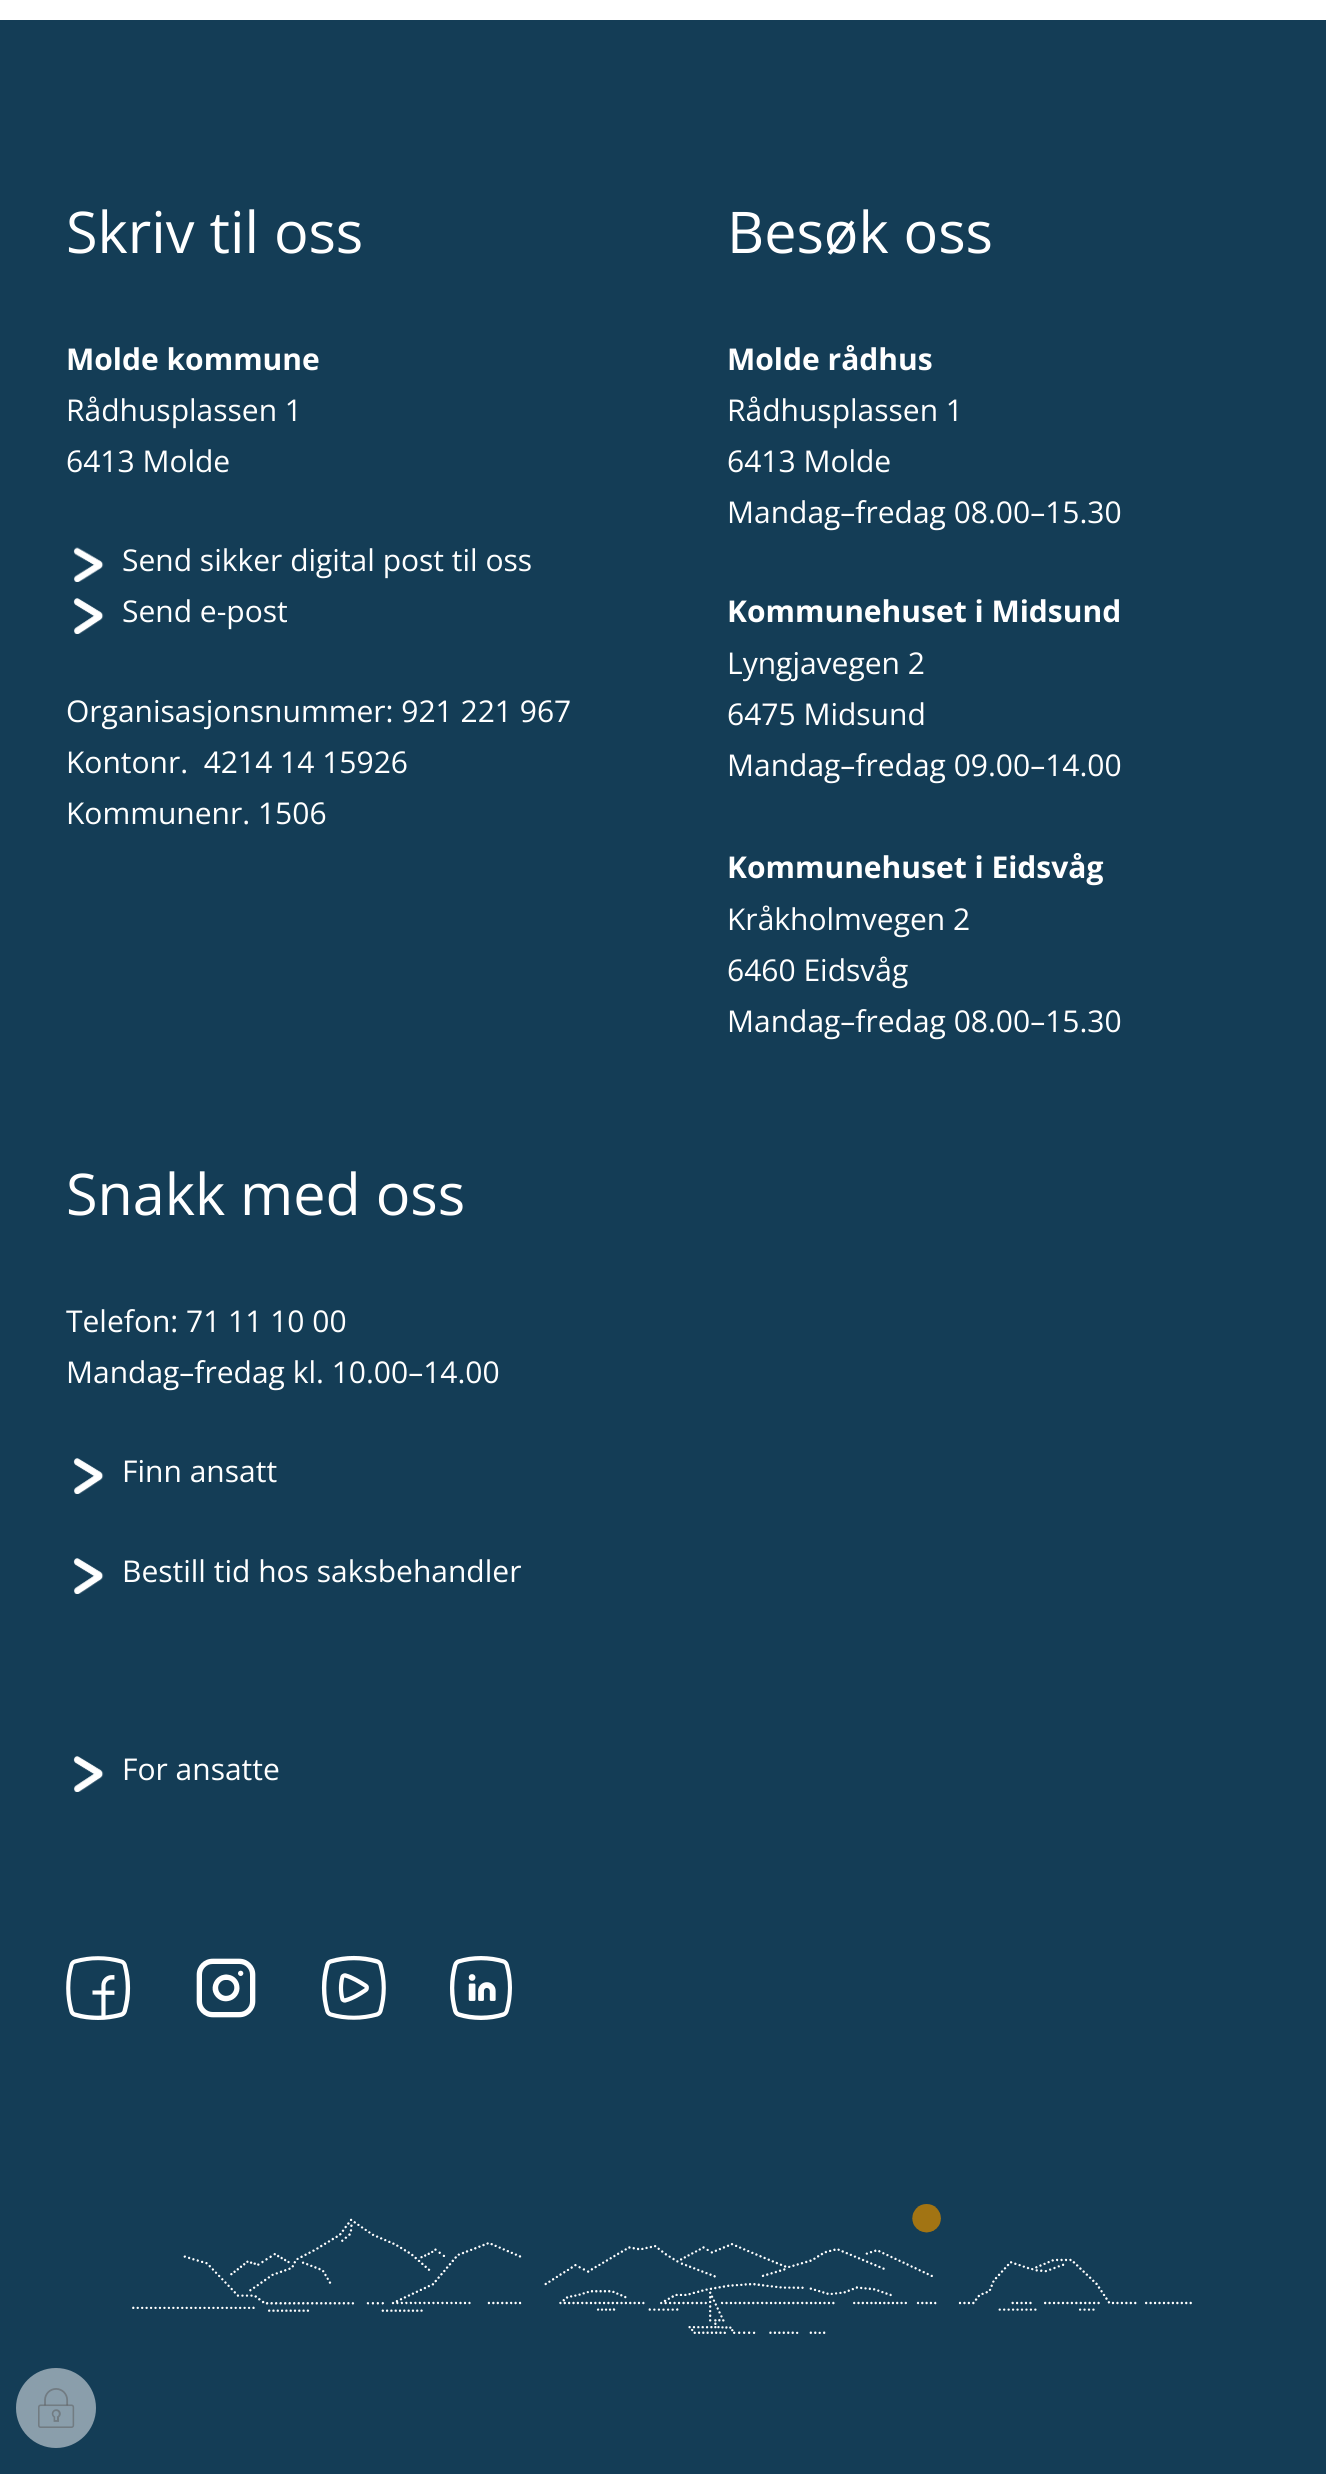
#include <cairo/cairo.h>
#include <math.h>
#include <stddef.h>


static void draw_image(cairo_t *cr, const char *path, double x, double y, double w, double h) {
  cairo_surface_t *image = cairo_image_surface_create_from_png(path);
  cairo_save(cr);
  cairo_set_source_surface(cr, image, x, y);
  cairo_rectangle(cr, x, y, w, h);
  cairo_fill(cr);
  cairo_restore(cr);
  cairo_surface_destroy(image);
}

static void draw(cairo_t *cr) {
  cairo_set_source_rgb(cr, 1, 1, 1);
  cairo_paint(cr);
  cairo_set_source_rgb(cr, 20 / 255.0, 61 / 255.0, 86 / 255.0);
  cairo_rectangle(cr, 0, 20, 1326, 2454);
  cairo_fill(cr);
  draw_image(cr, "images/1.png", 132, 2204, 1060, 130);
  draw_image(cr, "images/2.png", 73, 547, 31, 35);
  draw_image(cr, "images/3.png", 73, 598, 31, 36);
  draw_image(cr, "images/3.png", 73, 1458, 31, 36);
  draw_image(cr, "images/3.png", 73, 1558, 31, 36);
  draw_image(cr, "images/3.png", 73, 1756, 31, 36);
  draw_image(cr, "images/4.png", 66, 1956, 65, 64);
  draw_image(cr, "images/5.png", 196, 1958, 60, 60);
  draw_image(cr, "images/6.png", 321, 1955, 65, 65);
  draw_image(cr, "images/7.png", 450, 1956, 62, 64);
  cairo_set_source_rgb(cr, 138 / 255.0, 158 / 255.0, 171 / 255.0);
  cairo_arc(cr, 56, 2408, 40, 0, 2 * M_PI);
  cairo_fill(cr);
  draw_image(cr, "images/8.png", 38, 2388, 37, 40);
  cairo_select_font_face(cr, "Open Sans", CAIRO_FONT_SLANT_NORMAL, CAIRO_FONT_WEIGHT_NORMAL);
  cairo_set_font_size(cr, 57.5);
  cairo_set_source_rgb(cr, 1, 1, 1);
  cairo_move_to(cr, 66, 253);
  cairo_show_text(cr, "Skriv til oss");
  cairo_select_font_face(cr, "Open Sans", CAIRO_FONT_SLANT_NORMAL, CAIRO_FONT_WEIGHT_BOLD);
  cairo_set_font_size(cr, 30);
  cairo_move_to(cr, 66, 370);
  cairo_show_text(cr, "Molde kommune");
  cairo_select_font_face(cr, "Open Sans", CAIRO_FONT_SLANT_NORMAL, CAIRO_FONT_WEIGHT_NORMAL);
  cairo_move_to(cr, 66, 421);
  cairo_show_text(cr, "Rådhusplassen 1");
  cairo_move_to(cr, 66, 472);
  cairo_show_text(cr, "6413 Molde");
  cairo_move_to(cr, 122, 571);
  cairo_show_text(cr, "Send sikker digital post til oss");
  cairo_move_to(cr, 122, 622);
  cairo_show_text(cr, "Send e-post");
  cairo_move_to(cr, 66, 722);
  cairo_show_text(cr, "Organisasjonsnummer: 921 221 967");
  cairo_move_to(cr, 66, 773);
  cairo_show_text(cr, "Kontonr.  4214 14 15926");
  cairo_move_to(cr, 66, 824);
  cairo_show_text(cr, "Kommunenr. 1506");
  cairo_set_font_size(cr, 57.5);
  cairo_move_to(cr, 727, 253);
  cairo_show_text(cr, "Besøk oss");
  cairo_select_font_face(cr, "Open Sans", CAIRO_FONT_SLANT_NORMAL, CAIRO_FONT_WEIGHT_BOLD);
  cairo_set_font_size(cr, 30);
  cairo_move_to(cr, 727, 370);
  cairo_show_text(cr, "Molde rådhus");
  cairo_select_font_face(cr, "Open Sans", CAIRO_FONT_SLANT_NORMAL, CAIRO_FONT_WEIGHT_NORMAL);
  cairo_move_to(cr, 727, 421);
  cairo_show_text(cr, "Rådhusplassen 1");
  cairo_move_to(cr, 727, 472);
  cairo_show_text(cr, "6413 Molde");
  cairo_move_to(cr, 727, 523);
  cairo_show_text(cr, "Mandag–fredag 08.00–15.30");
  cairo_select_font_face(cr, "Open Sans", CAIRO_FONT_SLANT_NORMAL, CAIRO_FONT_WEIGHT_BOLD);
  cairo_move_to(cr, 727, 622);
  cairo_show_text(cr, "Kommunehuset i Midsund");
  cairo_select_font_face(cr, "Open Sans", CAIRO_FONT_SLANT_NORMAL, CAIRO_FONT_WEIGHT_NORMAL);
  cairo_move_to(cr, 727, 674);
  cairo_show_text(cr, "Lyngjavegen 2");
  cairo_move_to(cr, 727, 725);
  cairo_show_text(cr, "6475 Midsund");
  cairo_move_to(cr, 727, 776);
  cairo_show_text(cr, "Mandag–fredag 09.00–14.00");
  cairo_select_font_face(cr, "Open Sans", CAIRO_FONT_SLANT_NORMAL, CAIRO_FONT_WEIGHT_BOLD);
  cairo_move_to(cr, 727, 878);
  cairo_show_text(cr, "Kommunehuset i Eidsvåg");
  cairo_select_font_face(cr, "Open Sans", CAIRO_FONT_SLANT_NORMAL, CAIRO_FONT_WEIGHT_NORMAL);
  cairo_move_to(cr, 727, 930);
  cairo_show_text(cr, "Kråkholmvegen 2");
  cairo_move_to(cr, 727, 981);
  cairo_show_text(cr, "6460 Eidsvåg");
  cairo_move_to(cr, 727, 1032);
  cairo_show_text(cr, "Mandag–fredag 08.00–15.30");
  cairo_set_font_size(cr, 57.5);
  cairo_move_to(cr, 66, 1215);
  cairo_show_text(cr, "Snakk med oss");
  cairo_set_font_size(cr, 30);
  cairo_move_to(cr, 66, 1332);
  cairo_show_text(cr, "Telefon: 71 11 10 00");
  cairo_move_to(cr, 66, 1383);
  cairo_show_text(cr, "Mandag–fredag kl. 10.00–14.00");
  cairo_move_to(cr, 122, 1482);
  cairo_show_text(cr, "Finn ansatt");
  cairo_move_to(cr, 122, 1582);
  cairo_show_text(cr, "Bestill tid hos saksbehandler");
  cairo_move_to(cr, 122, 1780);
  cairo_show_text(cr, "For ansatte");
}

int main(void) {
  cairo_surface_t *surface = cairo_image_surface_create(CAIRO_FORMAT_RGB24, 1326, 2474);
  cairo_t *cr = cairo_create(surface);
  cairo_font_options_t *options = cairo_font_options_create();
  cairo_font_options_set_hint_metrics(options, CAIRO_HINT_METRICS_OFF);
  cairo_font_options_set_hint_style(options, CAIRO_HINT_STYLE_NONE);
  cairo_set_font_options(cr, options);
  cairo_set_miter_limit(cr, 4);
  draw(cr);
  cairo_surface_write_to_png(surface, "out.png");
  cairo_font_options_destroy(options);
  cairo_destroy(cr);
  cairo_surface_destroy(surface);
  return 0;
}
